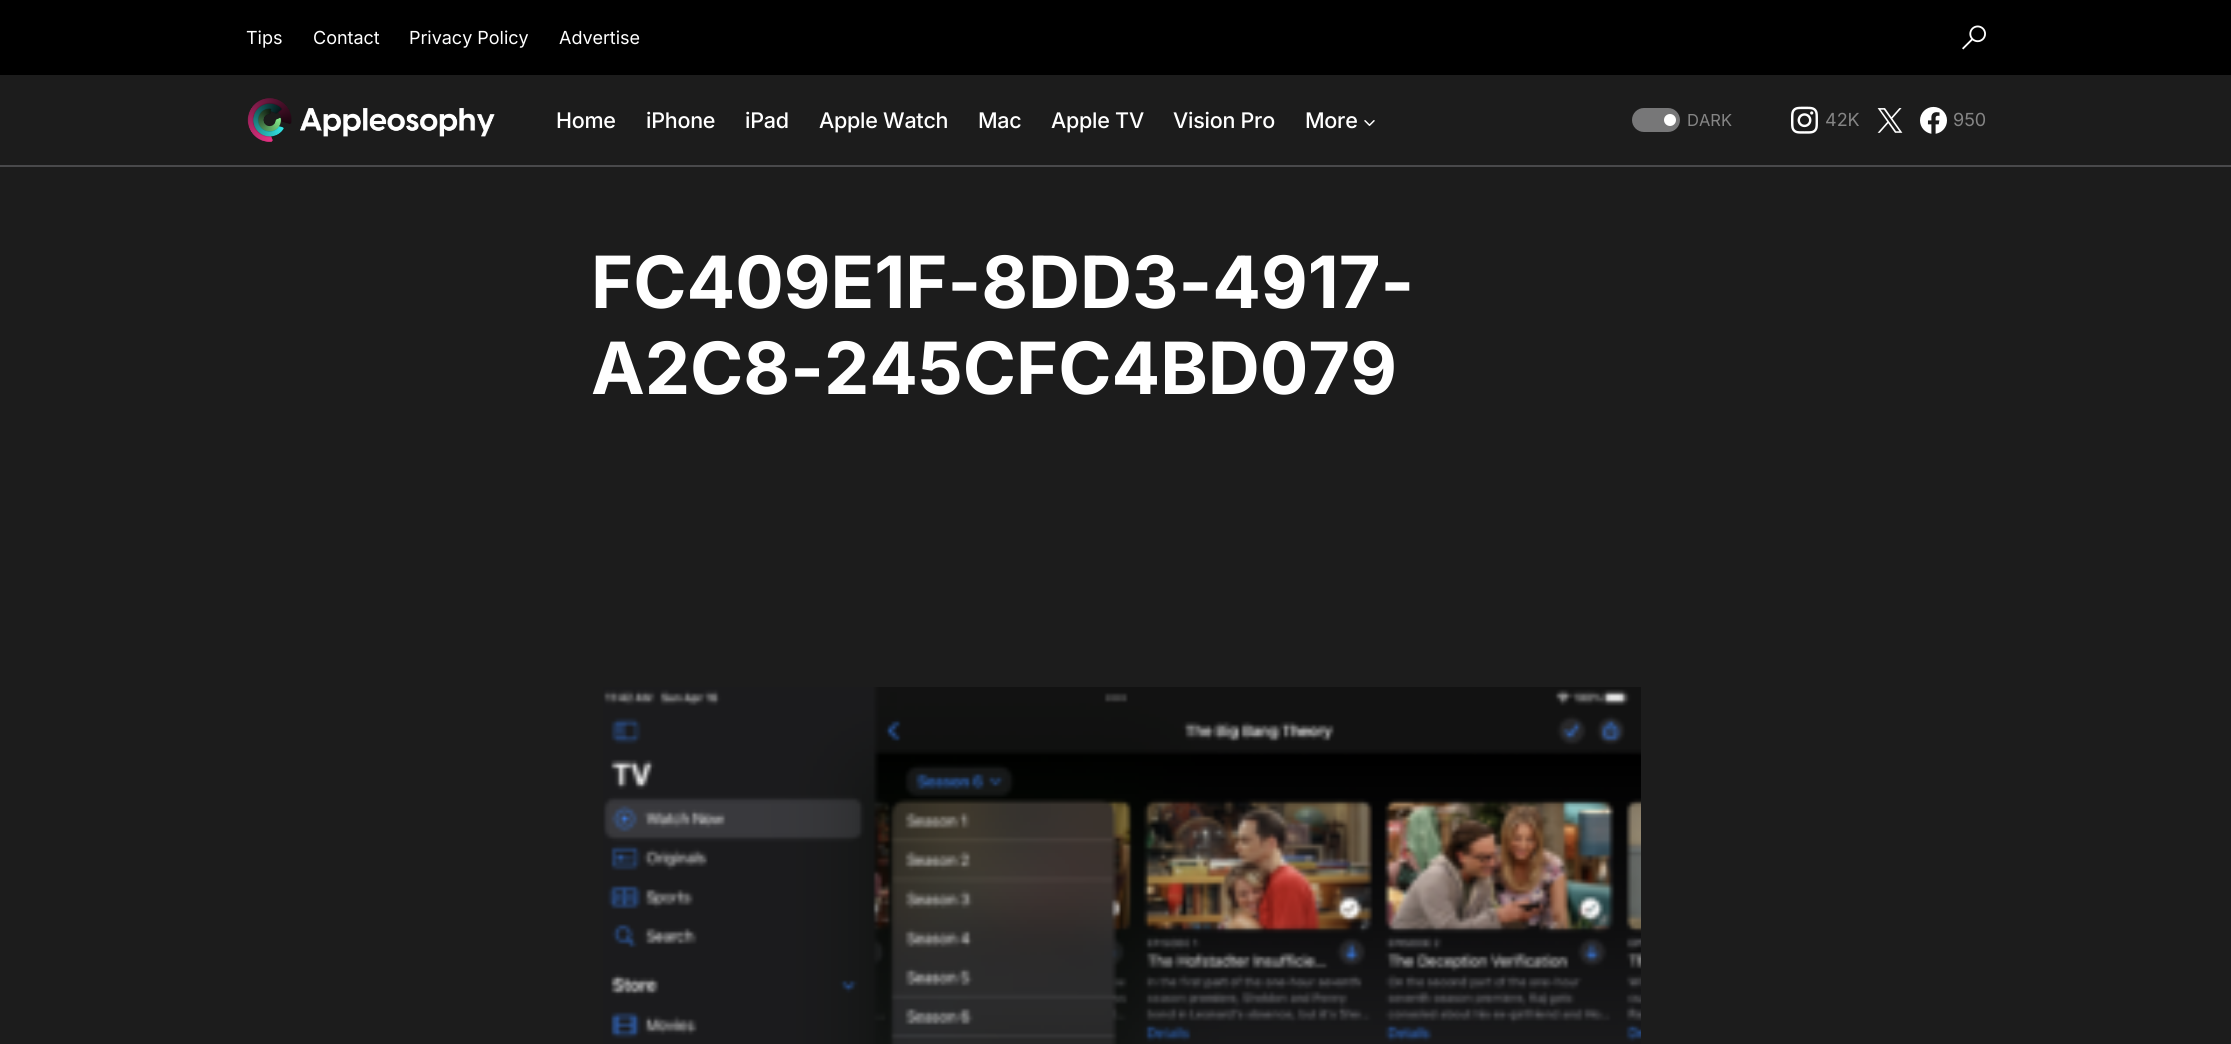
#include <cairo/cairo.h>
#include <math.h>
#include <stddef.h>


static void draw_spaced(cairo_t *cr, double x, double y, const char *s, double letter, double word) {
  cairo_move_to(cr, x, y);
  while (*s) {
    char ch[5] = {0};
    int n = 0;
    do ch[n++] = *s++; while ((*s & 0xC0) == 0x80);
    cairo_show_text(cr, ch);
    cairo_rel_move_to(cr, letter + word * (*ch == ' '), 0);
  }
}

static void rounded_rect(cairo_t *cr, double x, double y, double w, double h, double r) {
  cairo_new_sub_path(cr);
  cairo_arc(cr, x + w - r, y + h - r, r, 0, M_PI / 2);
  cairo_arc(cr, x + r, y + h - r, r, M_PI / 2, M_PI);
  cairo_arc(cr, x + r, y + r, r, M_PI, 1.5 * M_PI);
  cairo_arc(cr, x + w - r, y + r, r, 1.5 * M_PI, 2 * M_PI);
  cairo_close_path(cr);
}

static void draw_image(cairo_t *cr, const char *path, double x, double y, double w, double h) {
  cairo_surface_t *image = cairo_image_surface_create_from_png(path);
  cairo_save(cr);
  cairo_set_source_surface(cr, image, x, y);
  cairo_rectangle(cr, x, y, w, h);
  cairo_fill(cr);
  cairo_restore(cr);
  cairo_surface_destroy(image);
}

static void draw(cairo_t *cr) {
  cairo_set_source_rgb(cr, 28 / 255.0, 28 / 255.0, 28 / 255.0);
  cairo_paint(cr);
  cairo_set_source_rgb(cr, 0, 0, 0);
  cairo_rectangle(cr, 0, 0, 2231, 75);
  cairo_fill(cr);
  draw_image(cr, "images/1.png", 1962, 25, 24, 25);
  cairo_set_source_rgb(cr, 73 / 255.0, 73 / 255.0, 75 / 255.0);
  cairo_rectangle(cr, 0, 165, 2231, 2);
  cairo_fill(cr);
  draw_image(cr, "images/2.png", 247, 98, 248, 44);
  draw_image(cr, "images/3.png", 1364, 120, 11, 6);
  cairo_set_source_rgb(cr, 119 / 255.0, 119 / 255.0, 120 / 255.0);
  rounded_rect(cr, 1632, 108, 48, 24, 12);
  cairo_fill(cr);
  cairo_set_source_rgb(cr, 1, 1, 1);
  cairo_arc(cr, 1670, 120, 6, 0, 2 * M_PI);
  cairo_fill(cr);
  draw_image(cr, "images/4.png", 1791, 106, 27, 28);
  draw_image(cr, "images/5.png", 1877, 108, 26, 25);
  draw_image(cr, "images/6.png", 1920, 106, 27, 28);
  draw_image(cr, "images/7.png", 603, 687, 1038, 357);
  cairo_select_font_face(cr, "Inter", CAIRO_FONT_SLANT_NORMAL, CAIRO_FONT_WEIGHT_NORMAL);
  cairo_set_font_size(cr, 18);
  cairo_move_to(cr, 246, 44);
  cairo_show_text(cr, "Tips");
  cairo_move_to(cr, 313, 44);
  cairo_show_text(cr, "Contact");
  cairo_move_to(cr, 409, 44);
  cairo_show_text(cr, "Privacy Policy");
  cairo_move_to(cr, 559, 44);
  cairo_show_text(cr, "Advertise");
  cairo_select_font_face(cr, "Inter Medium", CAIRO_FONT_SLANT_NORMAL, CAIRO_FONT_WEIGHT_NORMAL);
  cairo_set_font_size(cr, 21.5);
  draw_spaced(cr, 556, 128, "Home", -0.25, 0);
  draw_spaced(cr, 646, 128, "iPhone", -0.25, 0);
  draw_spaced(cr, 745, 128, "iPad", -0.25, 0);
  draw_spaced(cr, 819, 128, "Apple Watch", -0.25, 0);
  draw_spaced(cr, 978, 128, "Mac", -0.25, 0);
  draw_spaced(cr, 1051, 128, "Apple TV", -0.25, 0);
  draw_spaced(cr, 1173, 128, "Vision Pro", -0.25, 0);
  draw_spaced(cr, 1305, 128, "More", -0.25, 0);
  cairo_select_font_face(cr, "Inter", CAIRO_FONT_SLANT_NORMAL, CAIRO_FONT_WEIGHT_NORMAL);
  cairo_set_font_size(cr, 16.5);
  cairo_set_source_rgb(cr, 133 / 255.0, 133 / 255.0, 133 / 255.0);
  cairo_move_to(cr, 1687, 126);
  cairo_show_text(cr, "DARK");
  cairo_set_font_size(cr, 18);
  cairo_move_to(cr, 1825, 126);
  cairo_show_text(cr, "42K");
  cairo_move_to(cr, 1953, 126);
  cairo_show_text(cr, "950");
  cairo_select_font_face(cr, "Inter", CAIRO_FONT_SLANT_NORMAL, CAIRO_FONT_WEIGHT_BOLD);
  cairo_set_font_size(cr, 72);
  cairo_set_source_rgb(cr, 1, 1, 1);
  cairo_move_to(cr, 591, 308);
  cairo_show_text(cr, "FC409E1F-8DD3-4917-");
  cairo_move_to(cr, 591, 394);
  cairo_show_text(cr, "A2C8-245CFC4BD079");
}

int main(void) {
  cairo_surface_t *surface = cairo_image_surface_create(CAIRO_FORMAT_RGB24, 2231, 1044);
  cairo_t *cr = cairo_create(surface);
  cairo_font_options_t *options = cairo_font_options_create();
  cairo_font_options_set_hint_metrics(options, CAIRO_HINT_METRICS_OFF);
  cairo_font_options_set_hint_style(options, CAIRO_HINT_STYLE_NONE);
  cairo_set_font_options(cr, options);
  cairo_set_miter_limit(cr, 4);
  draw(cr);
  cairo_surface_write_to_png(surface, "out.png");
  cairo_font_options_destroy(options);
  cairo_destroy(cr);
  cairo_surface_destroy(surface);
  return 0;
}
